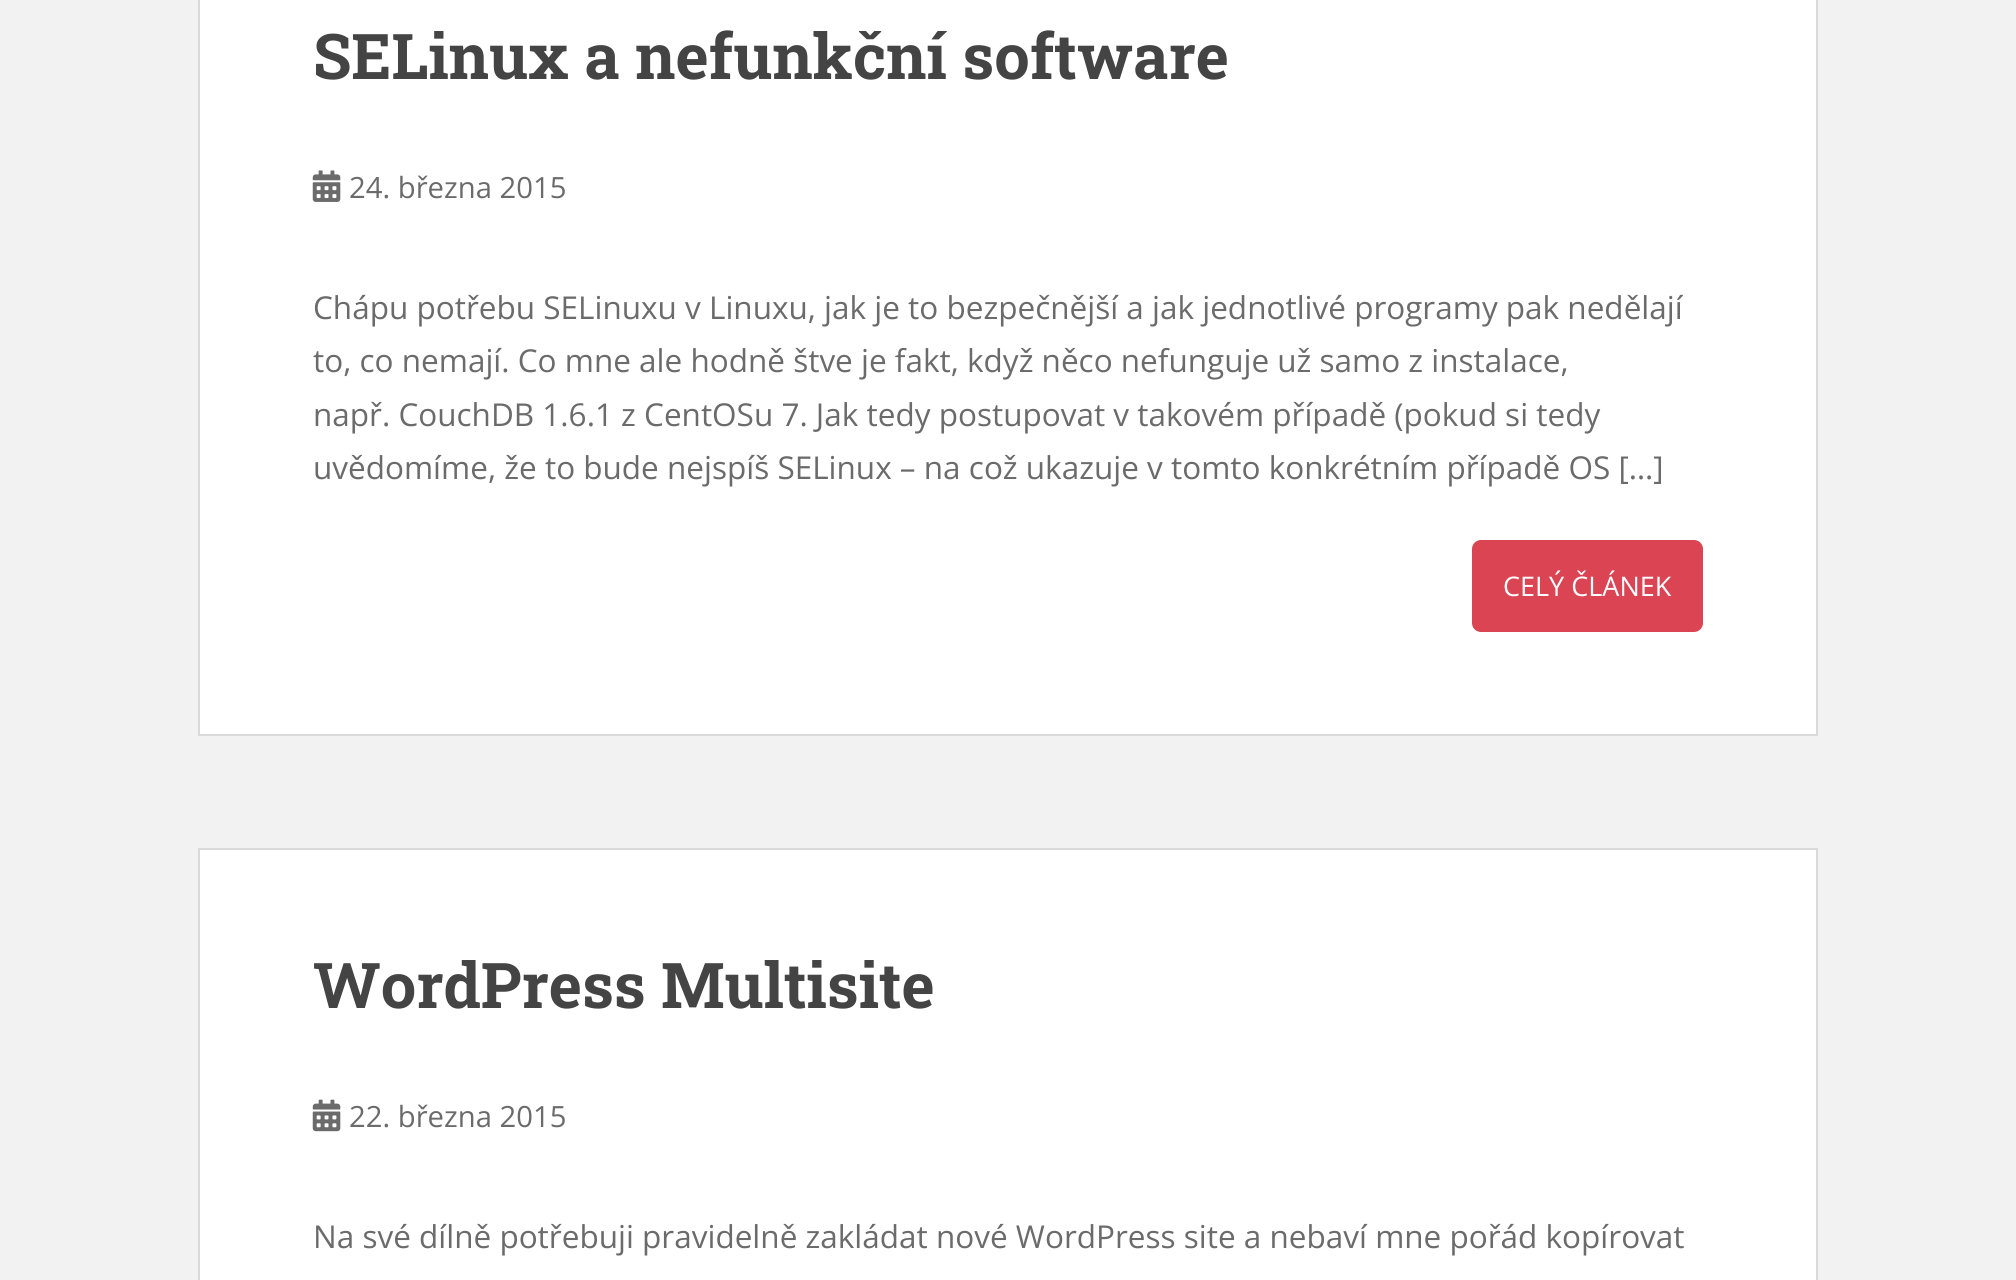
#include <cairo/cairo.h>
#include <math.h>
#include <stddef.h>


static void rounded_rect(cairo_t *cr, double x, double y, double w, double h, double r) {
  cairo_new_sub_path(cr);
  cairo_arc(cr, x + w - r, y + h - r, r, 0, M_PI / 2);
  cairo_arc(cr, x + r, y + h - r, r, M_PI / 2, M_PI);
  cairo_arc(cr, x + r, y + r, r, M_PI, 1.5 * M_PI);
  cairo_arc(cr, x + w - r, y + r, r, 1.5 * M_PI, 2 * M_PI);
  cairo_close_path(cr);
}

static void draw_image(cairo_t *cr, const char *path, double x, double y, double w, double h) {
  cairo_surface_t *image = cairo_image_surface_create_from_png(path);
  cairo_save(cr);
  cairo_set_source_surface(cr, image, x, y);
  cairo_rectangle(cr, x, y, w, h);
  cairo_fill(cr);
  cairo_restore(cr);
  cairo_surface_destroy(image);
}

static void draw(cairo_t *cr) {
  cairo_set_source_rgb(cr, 242 / 255.0, 242 / 255.0, 242 / 255.0);
  cairo_paint(cr);
  cairo_set_source_rgb(cr, 1, 1, 1);
  cairo_rectangle(cr, 199, -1, 1618, 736);
  cairo_fill_preserve(cr);
  cairo_set_source_rgb(cr, 218 / 255.0, 218 / 255.0, 218 / 255.0);
  cairo_stroke(cr);
  draw_image(cr, "images/1.png", 312, 170, 29, 32);
  cairo_set_source_rgb(cr, 218 / 255.0, 68 / 255.0, 83 / 255.0);
  rounded_rect(cr, 1473, 541, 229, 90, 8);
  cairo_fill_preserve(cr);
  cairo_stroke(cr);
  cairo_set_source_rgb(cr, 1, 1, 1);
  cairo_rectangle(cr, 199, 849, 1618, 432);
  cairo_fill_preserve(cr);
  cairo_set_source_rgb(cr, 218 / 255.0, 218 / 255.0, 218 / 255.0);
  cairo_stroke(cr);
  draw_image(cr, "images/2.png", 312, 1099, 29, 33);
  cairo_select_font_face(cr, "Roboto Slab", CAIRO_FONT_SLANT_NORMAL, CAIRO_FONT_WEIGHT_BOLD);
  cairo_set_font_size(cr, 63);
  cairo_set_source_rgb(cr, 68 / 255.0, 68 / 255.0, 68 / 255.0);
  cairo_move_to(cr, 313, 79);
  cairo_show_text(cr, "SELinux a nefunkční software");
  cairo_select_font_face(cr, "Open Sans", CAIRO_FONT_SLANT_NORMAL, CAIRO_FONT_WEIGHT_NORMAL);
  cairo_set_font_size(cr, 29.25);
  cairo_set_source_rgb(cr, 107 / 255.0, 107 / 255.0, 107 / 255.0);
  cairo_move_to(cr, 349, 198);
  cairo_show_text(cr, "24. března 2015");
  cairo_set_font_size(cr, 31.5);
  cairo_move_to(cr, 313, 319);
  cairo_show_text(cr, "Chápu potřebu SELinuxu v Linuxu, jak je to bezpečnější a jak jednotlivé programy pak nedělají");
  cairo_move_to(cr, 313, 372);
  cairo_show_text(cr, "to, co nemají. Co mne ale hodně štve je fakt, když něco nefunguje už samo z instalace,");
  cairo_move_to(cr, 313, 426);
  cairo_show_text(cr, "např. CouchDB 1.6.1 z CentOSu 7. Jak tedy postupovat v takovém případě (pokud si tedy");
  cairo_move_to(cr, 313, 479);
  cairo_show_text(cr, "uvědomíme, že to bude nejspíš SELinux – na což ukazuje v tomto konkrétním případě OS […]");
  cairo_set_font_size(cr, 27);
  cairo_set_source_rgb(cr, 1, 1, 1);
  cairo_move_to(cr, 1503, 596);
  cairo_show_text(cr, "CELÝ ČLÁNEK");
  cairo_select_font_face(cr, "Roboto Slab", CAIRO_FONT_SLANT_NORMAL, CAIRO_FONT_WEIGHT_BOLD);
  cairo_set_font_size(cr, 63);
  cairo_set_source_rgb(cr, 68 / 255.0, 68 / 255.0, 68 / 255.0);
  cairo_move_to(cr, 313, 1008);
  cairo_show_text(cr, "WordPress Multisite");
  cairo_select_font_face(cr, "Open Sans", CAIRO_FONT_SLANT_NORMAL, CAIRO_FONT_WEIGHT_NORMAL);
  cairo_set_font_size(cr, 29.25);
  cairo_set_source_rgb(cr, 107 / 255.0, 107 / 255.0, 107 / 255.0);
  cairo_move_to(cr, 349, 1127);
  cairo_show_text(cr, "22. března 2015");
  cairo_set_font_size(cr, 31.5);
  cairo_move_to(cr, 313, 1248);
  cairo_show_text(cr, "Na své dílně potřebuji pravidelně zakládat nové WordPress site a nebaví mne pořád kopírovat");
}

int main(void) {
  cairo_surface_t *surface = cairo_image_surface_create(CAIRO_FORMAT_RGB24, 2016, 1280);
  cairo_t *cr = cairo_create(surface);
  cairo_font_options_t *options = cairo_font_options_create();
  cairo_font_options_set_hint_metrics(options, CAIRO_HINT_METRICS_OFF);
  cairo_font_options_set_hint_style(options, CAIRO_HINT_STYLE_NONE);
  cairo_set_font_options(cr, options);
  cairo_set_miter_limit(cr, 4);
  draw(cr);
  cairo_surface_write_to_png(surface, "out.png");
  cairo_font_options_destroy(options);
  cairo_destroy(cr);
  cairo_surface_destroy(surface);
  return 0;
}
